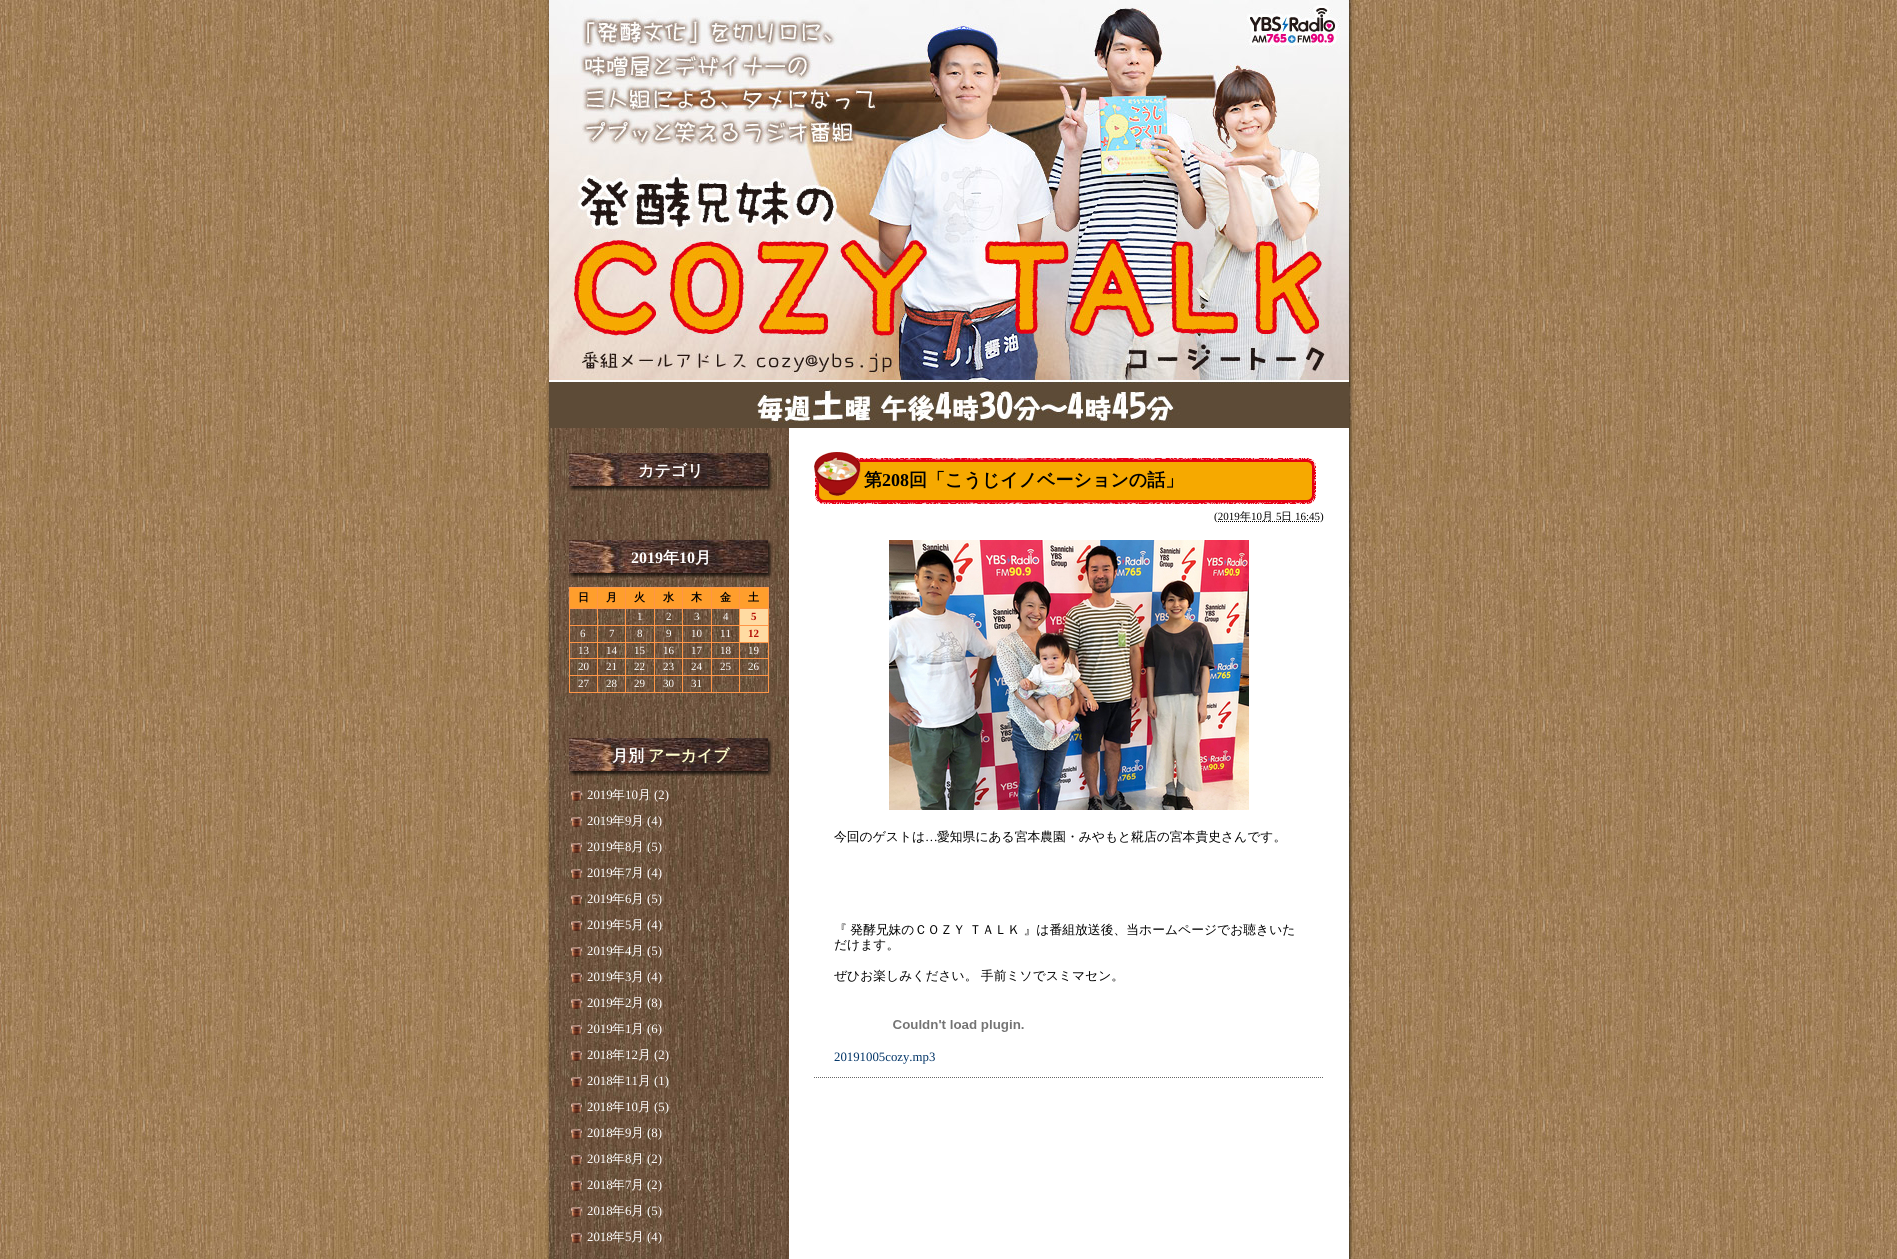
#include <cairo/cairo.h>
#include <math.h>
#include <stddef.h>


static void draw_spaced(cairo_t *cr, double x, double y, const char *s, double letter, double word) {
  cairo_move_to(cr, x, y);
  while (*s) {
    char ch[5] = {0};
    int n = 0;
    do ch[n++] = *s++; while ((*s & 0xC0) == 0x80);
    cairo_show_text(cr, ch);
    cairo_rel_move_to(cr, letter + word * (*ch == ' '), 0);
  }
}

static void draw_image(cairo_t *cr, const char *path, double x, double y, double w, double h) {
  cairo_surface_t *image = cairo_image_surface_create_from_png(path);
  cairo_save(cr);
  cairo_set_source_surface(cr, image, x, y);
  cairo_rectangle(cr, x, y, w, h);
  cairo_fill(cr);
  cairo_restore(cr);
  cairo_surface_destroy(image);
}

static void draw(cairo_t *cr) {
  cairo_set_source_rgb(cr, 1, 1, 1);
  cairo_paint(cr);
  draw_image(cr, "images/1.png", 0, 0, 1897, 1259);
  draw_image(cr, "images/2.png", 547, 0, 806, 1259);
  draw_image(cr, "images/3.png", 549, 0, 800, 428);
  draw_image(cr, "images/4.png", 569, 453, 204, 38);
  draw_image(cr, "images/5.png", 569, 540, 204, 38);
  cairo_set_source_rgb(cr, 1, 158 / 255.0, 44 / 255.0);
  cairo_rectangle(cr, 570, 588, 27, 20);
  cairo_fill(cr);
  cairo_set_source_rgb(cr, 1, 150 / 255.0, 71 / 255.0);
  cairo_rectangle(cr, 739, 587, 30, 1);
  cairo_fill(cr);
  cairo_rectangle(cr, 739, 608, 30, 1);
  cairo_fill(cr);
  cairo_rectangle(cr, 739, 625, 30, 1);
  cairo_fill(cr);
  cairo_rectangle(cr, 739, 642, 30, 1);
  cairo_fill(cr);
  cairo_rectangle(cr, 739, 658, 30, 1);
  cairo_fill(cr);
  cairo_rectangle(cr, 739, 675, 30, 1);
  cairo_fill(cr);
  cairo_rectangle(cr, 768, 675, 1, 18);
  cairo_fill(cr);
  cairo_rectangle(cr, 739, 692, 30, 1);
  cairo_fill(cr);
  cairo_rectangle(cr, 739, 675, 1, 18);
  cairo_fill(cr);
  cairo_rectangle(cr, 711, 675, 29, 1);
  cairo_fill(cr);
  cairo_rectangle(cr, 739, 658, 1, 18);
  cairo_fill(cr);
  cairo_rectangle(cr, 711, 658, 29, 1);
  cairo_fill(cr);
  cairo_rectangle(cr, 739, 642, 1, 17);
  cairo_fill(cr);
  cairo_rectangle(cr, 711, 642, 29, 1);
  cairo_fill(cr);
  cairo_rectangle(cr, 739, 625, 1, 18);
  cairo_fill(cr);
  cairo_rectangle(cr, 711, 625, 29, 1);
  cairo_fill(cr);
  cairo_rectangle(cr, 739, 608, 1, 18);
  cairo_fill(cr);
  cairo_rectangle(cr, 711, 608, 29, 1);
  cairo_fill(cr);
  cairo_rectangle(cr, 739, 587, 1, 22);
  cairo_fill(cr);
  cairo_rectangle(cr, 711, 587, 29, 1);
  cairo_fill(cr);
  cairo_rectangle(cr, 711, 692, 29, 1);
  cairo_fill(cr);
  cairo_rectangle(cr, 711, 675, 1, 18);
  cairo_fill(cr);
  cairo_rectangle(cr, 682, 675, 30, 1);
  cairo_fill(cr);
  cairo_rectangle(cr, 711, 658, 1, 18);
  cairo_fill(cr);
  cairo_rectangle(cr, 682, 658, 30, 1);
  cairo_fill(cr);
  cairo_rectangle(cr, 711, 642, 1, 17);
  cairo_fill(cr);
  cairo_rectangle(cr, 682, 642, 30, 1);
  cairo_fill(cr);
  cairo_rectangle(cr, 711, 625, 1, 18);
  cairo_fill(cr);
  cairo_rectangle(cr, 682, 625, 30, 1);
  cairo_fill(cr);
  cairo_rectangle(cr, 711, 608, 1, 18);
  cairo_fill(cr);
  cairo_rectangle(cr, 682, 608, 30, 1);
  cairo_fill(cr);
  cairo_rectangle(cr, 711, 587, 1, 22);
  cairo_fill(cr);
  cairo_rectangle(cr, 682, 587, 30, 1);
  cairo_fill(cr);
  cairo_rectangle(cr, 682, 692, 30, 1);
  cairo_fill(cr);
  cairo_rectangle(cr, 682, 675, 1, 18);
  cairo_fill(cr);
  cairo_rectangle(cr, 654, 675, 29, 1);
  cairo_fill(cr);
  cairo_rectangle(cr, 682, 658, 1, 18);
  cairo_fill(cr);
  cairo_rectangle(cr, 654, 658, 29, 1);
  cairo_fill(cr);
  cairo_rectangle(cr, 682, 642, 1, 17);
  cairo_fill(cr);
  cairo_rectangle(cr, 654, 642, 29, 1);
  cairo_fill(cr);
  cairo_rectangle(cr, 682, 625, 1, 18);
  cairo_fill(cr);
  cairo_rectangle(cr, 654, 625, 29, 1);
  cairo_fill(cr);
  cairo_rectangle(cr, 682, 608, 1, 18);
  cairo_fill(cr);
  cairo_rectangle(cr, 654, 608, 29, 1);
  cairo_fill(cr);
  cairo_rectangle(cr, 682, 587, 1, 22);
  cairo_fill(cr);
  cairo_rectangle(cr, 654, 587, 29, 1);
  cairo_fill(cr);
  cairo_rectangle(cr, 654, 692, 29, 1);
  cairo_fill(cr);
  cairo_rectangle(cr, 654, 675, 1, 18);
  cairo_fill(cr);
  cairo_rectangle(cr, 625, 675, 30, 1);
  cairo_fill(cr);
  cairo_rectangle(cr, 654, 658, 1, 18);
  cairo_fill(cr);
  cairo_rectangle(cr, 625, 658, 30, 1);
  cairo_fill(cr);
  cairo_rectangle(cr, 654, 642, 1, 17);
  cairo_fill(cr);
  cairo_rectangle(cr, 625, 642, 30, 1);
  cairo_fill(cr);
  cairo_rectangle(cr, 654, 625, 1, 18);
  cairo_fill(cr);
  cairo_rectangle(cr, 625, 625, 30, 1);
  cairo_fill(cr);
  cairo_rectangle(cr, 654, 608, 1, 18);
  cairo_fill(cr);
  cairo_rectangle(cr, 625, 608, 30, 1);
  cairo_fill(cr);
  cairo_rectangle(cr, 654, 587, 1, 22);
  cairo_fill(cr);
  cairo_rectangle(cr, 625, 587, 30, 1);
  cairo_fill(cr);
  cairo_rectangle(cr, 625, 692, 30, 1);
  cairo_fill(cr);
  cairo_rectangle(cr, 625, 675, 1, 18);
  cairo_fill(cr);
  cairo_rectangle(cr, 597, 675, 29, 1);
  cairo_fill(cr);
  cairo_rectangle(cr, 625, 658, 1, 18);
  cairo_fill(cr);
  cairo_rectangle(cr, 597, 658, 29, 1);
  cairo_fill(cr);
  cairo_rectangle(cr, 625, 642, 1, 17);
  cairo_fill(cr);
  cairo_rectangle(cr, 597, 642, 29, 1);
  cairo_fill(cr);
  cairo_rectangle(cr, 625, 625, 1, 18);
  cairo_fill(cr);
  cairo_rectangle(cr, 597, 625, 29, 1);
  cairo_fill(cr);
  cairo_rectangle(cr, 625, 608, 1, 18);
  cairo_fill(cr);
  cairo_rectangle(cr, 597, 608, 29, 1);
  cairo_fill(cr);
  cairo_rectangle(cr, 625, 587, 1, 22);
  cairo_fill(cr);
  cairo_rectangle(cr, 597, 587, 29, 1);
  cairo_fill(cr);
  cairo_rectangle(cr, 597, 692, 29, 1);
  cairo_fill(cr);
  cairo_rectangle(cr, 597, 675, 1, 18);
  cairo_fill(cr);
  cairo_rectangle(cr, 569, 675, 29, 1);
  cairo_fill(cr);
  cairo_rectangle(cr, 597, 658, 1, 18);
  cairo_fill(cr);
  cairo_rectangle(cr, 569, 658, 29, 1);
  cairo_fill(cr);
  cairo_rectangle(cr, 597, 642, 1, 17);
  cairo_fill(cr);
  cairo_rectangle(cr, 569, 642, 29, 1);
  cairo_fill(cr);
  cairo_rectangle(cr, 597, 625, 1, 18);
  cairo_fill(cr);
  cairo_rectangle(cr, 569, 625, 29, 1);
  cairo_fill(cr);
  cairo_rectangle(cr, 597, 608, 1, 18);
  cairo_fill(cr);
  cairo_rectangle(cr, 569, 608, 29, 1);
  cairo_fill(cr);
  cairo_rectangle(cr, 597, 587, 1, 22);
  cairo_fill(cr);
  cairo_rectangle(cr, 569, 587, 29, 1);
  cairo_fill(cr);
  cairo_rectangle(cr, 569, 692, 29, 1);
  cairo_fill(cr);
  cairo_rectangle(cr, 569, 675, 1, 18);
  cairo_fill(cr);
  cairo_rectangle(cr, 569, 658, 1, 18);
  cairo_fill(cr);
  cairo_rectangle(cr, 569, 642, 1, 17);
  cairo_fill(cr);
  cairo_rectangle(cr, 569, 625, 1, 18);
  cairo_fill(cr);
  cairo_rectangle(cr, 569, 608, 1, 18);
  cairo_fill(cr);
  cairo_rectangle(cr, 569, 587, 1, 22);
  cairo_fill(cr);
  cairo_set_source_rgb(cr, 1, 158 / 255.0, 44 / 255.0);
  cairo_rectangle(cr, 598, 588, 27, 20);
  cairo_fill(cr);
  cairo_rectangle(cr, 626, 588, 28, 20);
  cairo_fill(cr);
  cairo_rectangle(cr, 655, 588, 27, 20);
  cairo_fill(cr);
  cairo_rectangle(cr, 683, 588, 28, 20);
  cairo_fill(cr);
  cairo_rectangle(cr, 712, 588, 27, 20);
  cairo_fill(cr);
  cairo_rectangle(cr, 740, 588, 28, 20);
  cairo_fill(cr);
  cairo_set_source_rgb(cr, 1, 150 / 255.0, 71 / 255.0);
  cairo_rectangle(cr, 768, 658, 1, 18);
  cairo_fill(cr);
  cairo_rectangle(cr, 768, 642, 1, 17);
  cairo_fill(cr);
  cairo_rectangle(cr, 768, 625, 1, 18);
  cairo_fill(cr);
  cairo_rectangle(cr, 768, 608, 1, 18);
  cairo_fill(cr);
  cairo_rectangle(cr, 768, 587, 1, 22);
  cairo_fill(cr);
  cairo_set_source_rgb(cr, 1, 219 / 255.0, 162 / 255.0);
  cairo_rectangle(cr, 740, 609, 28, 16);
  cairo_fill(cr);
  cairo_rectangle(cr, 740, 626, 28, 16);
  cairo_fill(cr);
  draw_image(cr, "images/6.png", 569, 738, 204, 38);
  draw_image(cr, "images/7.png", 571, 791, 11, 10);
  draw_image(cr, "images/8.png", 571, 817, 11, 10);
  draw_image(cr, "images/9.png", 571, 843, 11, 10);
  draw_image(cr, "images/10.png", 571, 869, 11, 10);
  draw_image(cr, "images/11.png", 571, 895, 11, 10);
  draw_image(cr, "images/12.png", 571, 921, 11, 10);
  draw_image(cr, "images/13.png", 571, 947, 11, 10);
  draw_image(cr, "images/14.png", 571, 973, 11, 10);
  draw_image(cr, "images/15.png", 571, 999, 11, 10);
  draw_image(cr, "images/16.png", 571, 1025, 11, 10);
  draw_image(cr, "images/17.png", 571, 1051, 11, 10);
  draw_image(cr, "images/18.png", 571, 1077, 11, 10);
  draw_image(cr, "images/19.png", 571, 1103, 11, 10);
  draw_image(cr, "images/20.png", 571, 1129, 11, 10);
  draw_image(cr, "images/21.png", 571, 1155, 11, 10);
  draw_image(cr, "images/22.png", 571, 1181, 11, 10);
  draw_image(cr, "images/23.png", 571, 1207, 11, 10);
  draw_image(cr, "images/24.png", 571, 1233, 11, 10);
  draw_image(cr, "images/25.png", 814, 452, 502, 52);
  cairo_new_path(cr);
  cairo_move_to(cr, 1218, 521.5);
  cairo_line_to(cr, 1320, 521.5);
  cairo_set_source_rgb(cr, 0, 0, 0);
  cairo_set_line_width(cr, 1);
  cairo_set_dash(cr, (double[]){1, 1}, 2, 0);
  cairo_stroke(cr);
  draw_image(cr, "images/26.png", 889, 540, 360, 270);
  draw_image(cr, "images/27.png", 893, 1020, 131, 12);
  cairo_new_path(cr);
  cairo_move_to(cr, 814, 1077.5);
  cairo_line_to(cr, 1324, 1077.5);
  cairo_set_source_rgb(cr, 102 / 255.0, 102 / 255.0, 102 / 255.0);
  cairo_stroke(cr);
  cairo_select_font_face(cr, "WenQuanYi Zen Hei", CAIRO_FONT_SLANT_NORMAL, CAIRO_FONT_WEIGHT_BOLD);
  cairo_set_font_size(cr, 16);
  cairo_set_source_rgb(cr, 1, 1, 1);
  cairo_move_to(cr, 638, 476);
  cairo_show_text(cr, "カテゴリ");
  cairo_select_font_face(cr, "Liberation Serif", CAIRO_FONT_SLANT_NORMAL, CAIRO_FONT_WEIGHT_BOLD);
  cairo_move_to(cr, 631, 563);
  cairo_show_text(cr, "2019");
  cairo_select_font_face(cr, "WenQuanYi Zen Hei", CAIRO_FONT_SLANT_NORMAL, CAIRO_FONT_WEIGHT_BOLD);
  cairo_move_to(cr, 663, 563);
  cairo_show_text(cr, "年");
  cairo_select_font_face(cr, "Liberation Serif", CAIRO_FONT_SLANT_NORMAL, CAIRO_FONT_WEIGHT_BOLD);
  cairo_move_to(cr, 679, 563);
  cairo_show_text(cr, "10");
  cairo_select_font_face(cr, "WenQuanYi Zen Hei", CAIRO_FONT_SLANT_NORMAL, CAIRO_FONT_WEIGHT_BOLD);
  cairo_move_to(cr, 695, 563);
  cairo_show_text(cr, "月");
  cairo_set_font_size(cr, 11);
  cairo_set_source_rgb(cr, 0, 0, 0);
  cairo_move_to(cr, 578, 601);
  cairo_show_text(cr, "日");
  cairo_move_to(cr, 606, 601);
  cairo_show_text(cr, "月");
  cairo_move_to(cr, 634, 601);
  cairo_show_text(cr, "火");
  cairo_move_to(cr, 663, 601);
  cairo_show_text(cr, "水");
  cairo_move_to(cr, 691, 601);
  cairo_show_text(cr, "木");
  cairo_move_to(cr, 720, 601);
  cairo_show_text(cr, "金");
  cairo_move_to(cr, 748, 601);
  cairo_show_text(cr, "土");
  cairo_select_font_face(cr, "Liberation Serif", CAIRO_FONT_SLANT_NORMAL, CAIRO_FONT_WEIGHT_NORMAL);
  cairo_set_source_rgb(cr, 1, 1, 1);
  cairo_move_to(cr, 637, 620);
  cairo_show_text(cr, "1");
  cairo_move_to(cr, 666, 620);
  cairo_show_text(cr, "2");
  cairo_move_to(cr, 694, 620);
  cairo_show_text(cr, "3");
  cairo_move_to(cr, 723, 620);
  cairo_show_text(cr, "4");
  cairo_select_font_face(cr, "Liberation Serif", CAIRO_FONT_SLANT_NORMAL, CAIRO_FONT_WEIGHT_BOLD);
  cairo_set_source_rgb(cr, 181 / 255.0, 16 / 255.0, 6 / 255.0);
  cairo_move_to(cr, 751, 620);
  cairo_show_text(cr, "5");
  cairo_select_font_face(cr, "Liberation Serif", CAIRO_FONT_SLANT_NORMAL, CAIRO_FONT_WEIGHT_NORMAL);
  cairo_set_source_rgb(cr, 1, 1, 1);
  cairo_move_to(cr, 580, 637);
  cairo_show_text(cr, "6");
  cairo_move_to(cr, 609, 637);
  cairo_show_text(cr, "7");
  cairo_move_to(cr, 637, 637);
  cairo_show_text(cr, "8");
  cairo_move_to(cr, 666, 637);
  cairo_show_text(cr, "9");
  cairo_move_to(cr, 691, 637);
  cairo_show_text(cr, "10");
  cairo_move_to(cr, 720, 637);
  cairo_show_text(cr, "11");
  cairo_select_font_face(cr, "Liberation Serif", CAIRO_FONT_SLANT_NORMAL, CAIRO_FONT_WEIGHT_BOLD);
  cairo_set_source_rgb(cr, 181 / 255.0, 16 / 255.0, 6 / 255.0);
  cairo_move_to(cr, 748, 637);
  cairo_show_text(cr, "12");
  cairo_select_font_face(cr, "Liberation Serif", CAIRO_FONT_SLANT_NORMAL, CAIRO_FONT_WEIGHT_NORMAL);
  cairo_set_source_rgb(cr, 1, 1, 1);
  cairo_move_to(cr, 578, 654);
  cairo_show_text(cr, "13");
  cairo_move_to(cr, 606, 654);
  cairo_show_text(cr, "14");
  cairo_move_to(cr, 634, 654);
  cairo_show_text(cr, "15");
  cairo_move_to(cr, 663, 654);
  cairo_show_text(cr, "16");
  cairo_move_to(cr, 691, 654);
  cairo_show_text(cr, "17");
  cairo_move_to(cr, 720, 654);
  cairo_show_text(cr, "18");
  cairo_move_to(cr, 748, 654);
  cairo_show_text(cr, "19");
  cairo_move_to(cr, 578, 670);
  cairo_show_text(cr, "20");
  cairo_move_to(cr, 606, 670);
  cairo_show_text(cr, "21");
  cairo_move_to(cr, 634, 670);
  cairo_show_text(cr, "22");
  cairo_move_to(cr, 663, 670);
  cairo_show_text(cr, "23");
  cairo_move_to(cr, 691, 670);
  cairo_show_text(cr, "24");
  cairo_move_to(cr, 720, 670);
  cairo_show_text(cr, "25");
  cairo_move_to(cr, 748, 670);
  cairo_show_text(cr, "26");
  cairo_move_to(cr, 578, 687);
  cairo_show_text(cr, "27");
  cairo_move_to(cr, 606, 687);
  cairo_show_text(cr, "28");
  cairo_move_to(cr, 634, 687);
  cairo_show_text(cr, "29");
  cairo_move_to(cr, 663, 687);
  cairo_show_text(cr, "30");
  cairo_move_to(cr, 691, 687);
  cairo_show_text(cr, "31");
  cairo_select_font_face(cr, "WenQuanYi Zen Hei", CAIRO_FONT_SLANT_NORMAL, CAIRO_FONT_WEIGHT_BOLD);
  cairo_set_font_size(cr, 16);
  cairo_move_to(cr, 612, 761);
  cairo_show_text(cr, "月別");
  cairo_set_source_rgb(cr, 1, 1, 204 / 255.0);
  cairo_move_to(cr, 648, 761);
  cairo_show_text(cr, "アーカイブ");
  cairo_select_font_face(cr, "Liberation Serif", CAIRO_FONT_SLANT_NORMAL, CAIRO_FONT_WEIGHT_NORMAL);
  cairo_set_font_size(cr, 12.8);
  cairo_set_source_rgb(cr, 1, 1, 1);
  cairo_move_to(cr, 587, 799);
  cairo_show_text(cr, "2019");
  cairo_select_font_face(cr, "WenQuanYi Zen Hei Medium", CAIRO_FONT_SLANT_NORMAL, CAIRO_FONT_WEIGHT_NORMAL);
  cairo_move_to(cr, 612, 799);
  cairo_show_text(cr, "年");
  cairo_select_font_face(cr, "Liberation Serif", CAIRO_FONT_SLANT_NORMAL, CAIRO_FONT_WEIGHT_NORMAL);
  cairo_move_to(cr, 625, 799);
  cairo_show_text(cr, "10");
  cairo_select_font_face(cr, "WenQuanYi Zen Hei Medium", CAIRO_FONT_SLANT_NORMAL, CAIRO_FONT_WEIGHT_NORMAL);
  cairo_move_to(cr, 638, 799);
  cairo_show_text(cr, "月");
  cairo_select_font_face(cr, "Liberation Serif", CAIRO_FONT_SLANT_NORMAL, CAIRO_FONT_WEIGHT_NORMAL);
  cairo_move_to(cr, 654, 799);
  cairo_show_text(cr, "(2)");
  cairo_move_to(cr, 587, 825);
  cairo_show_text(cr, "2019");
  cairo_select_font_face(cr, "WenQuanYi Zen Hei Medium", CAIRO_FONT_SLANT_NORMAL, CAIRO_FONT_WEIGHT_NORMAL);
  cairo_move_to(cr, 612, 825);
  cairo_show_text(cr, "年");
  cairo_select_font_face(cr, "Liberation Serif", CAIRO_FONT_SLANT_NORMAL, CAIRO_FONT_WEIGHT_NORMAL);
  cairo_move_to(cr, 625, 825);
  cairo_show_text(cr, "9");
  cairo_select_font_face(cr, "WenQuanYi Zen Hei Medium", CAIRO_FONT_SLANT_NORMAL, CAIRO_FONT_WEIGHT_NORMAL);
  cairo_move_to(cr, 631, 825);
  cairo_show_text(cr, "月");
  cairo_select_font_face(cr, "Liberation Serif", CAIRO_FONT_SLANT_NORMAL, CAIRO_FONT_WEIGHT_NORMAL);
  cairo_move_to(cr, 647, 825);
  cairo_show_text(cr, "(4)");
  cairo_move_to(cr, 587, 851);
  cairo_show_text(cr, "2019");
  cairo_select_font_face(cr, "WenQuanYi Zen Hei Medium", CAIRO_FONT_SLANT_NORMAL, CAIRO_FONT_WEIGHT_NORMAL);
  cairo_move_to(cr, 612, 851);
  cairo_show_text(cr, "年");
  cairo_select_font_face(cr, "Liberation Serif", CAIRO_FONT_SLANT_NORMAL, CAIRO_FONT_WEIGHT_NORMAL);
  cairo_move_to(cr, 625, 851);
  cairo_show_text(cr, "8");
  cairo_select_font_face(cr, "WenQuanYi Zen Hei Medium", CAIRO_FONT_SLANT_NORMAL, CAIRO_FONT_WEIGHT_NORMAL);
  cairo_move_to(cr, 631, 851);
  cairo_show_text(cr, "月");
  cairo_select_font_face(cr, "Liberation Serif", CAIRO_FONT_SLANT_NORMAL, CAIRO_FONT_WEIGHT_NORMAL);
  cairo_move_to(cr, 647, 851);
  cairo_show_text(cr, "(5)");
  cairo_move_to(cr, 587, 877);
  cairo_show_text(cr, "2019");
  cairo_select_font_face(cr, "WenQuanYi Zen Hei Medium", CAIRO_FONT_SLANT_NORMAL, CAIRO_FONT_WEIGHT_NORMAL);
  cairo_move_to(cr, 612, 877);
  cairo_show_text(cr, "年");
  cairo_select_font_face(cr, "Liberation Serif", CAIRO_FONT_SLANT_NORMAL, CAIRO_FONT_WEIGHT_NORMAL);
  cairo_move_to(cr, 625, 877);
  cairo_show_text(cr, "7");
  cairo_select_font_face(cr, "WenQuanYi Zen Hei Medium", CAIRO_FONT_SLANT_NORMAL, CAIRO_FONT_WEIGHT_NORMAL);
  cairo_move_to(cr, 631, 877);
  cairo_show_text(cr, "月");
  cairo_select_font_face(cr, "Liberation Serif", CAIRO_FONT_SLANT_NORMAL, CAIRO_FONT_WEIGHT_NORMAL);
  cairo_move_to(cr, 647, 877);
  cairo_show_text(cr, "(4)");
  cairo_move_to(cr, 587, 903);
  cairo_show_text(cr, "2019");
  cairo_select_font_face(cr, "WenQuanYi Zen Hei Medium", CAIRO_FONT_SLANT_NORMAL, CAIRO_FONT_WEIGHT_NORMAL);
  cairo_move_to(cr, 612, 903);
  cairo_show_text(cr, "年");
  cairo_select_font_face(cr, "Liberation Serif", CAIRO_FONT_SLANT_NORMAL, CAIRO_FONT_WEIGHT_NORMAL);
  cairo_move_to(cr, 625, 903);
  cairo_show_text(cr, "6");
  cairo_select_font_face(cr, "WenQuanYi Zen Hei Medium", CAIRO_FONT_SLANT_NORMAL, CAIRO_FONT_WEIGHT_NORMAL);
  cairo_move_to(cr, 631, 903);
  cairo_show_text(cr, "月");
  cairo_select_font_face(cr, "Liberation Serif", CAIRO_FONT_SLANT_NORMAL, CAIRO_FONT_WEIGHT_NORMAL);
  cairo_move_to(cr, 647, 903);
  cairo_show_text(cr, "(5)");
  cairo_move_to(cr, 587, 929);
  cairo_show_text(cr, "2019");
  cairo_select_font_face(cr, "WenQuanYi Zen Hei Medium", CAIRO_FONT_SLANT_NORMAL, CAIRO_FONT_WEIGHT_NORMAL);
  cairo_move_to(cr, 612, 929);
  cairo_show_text(cr, "年");
  cairo_select_font_face(cr, "Liberation Serif", CAIRO_FONT_SLANT_NORMAL, CAIRO_FONT_WEIGHT_NORMAL);
  cairo_move_to(cr, 625, 929);
  cairo_show_text(cr, "5");
  cairo_select_font_face(cr, "WenQuanYi Zen Hei Medium", CAIRO_FONT_SLANT_NORMAL, CAIRO_FONT_WEIGHT_NORMAL);
  cairo_move_to(cr, 631, 929);
  cairo_show_text(cr, "月");
  cairo_select_font_face(cr, "Liberation Serif", CAIRO_FONT_SLANT_NORMAL, CAIRO_FONT_WEIGHT_NORMAL);
  cairo_move_to(cr, 647, 929);
  cairo_show_text(cr, "(4)");
  cairo_move_to(cr, 587, 955);
  cairo_show_text(cr, "2019");
  cairo_select_font_face(cr, "WenQuanYi Zen Hei Medium", CAIRO_FONT_SLANT_NORMAL, CAIRO_FONT_WEIGHT_NORMAL);
  cairo_move_to(cr, 612, 955);
  cairo_show_text(cr, "年");
  cairo_select_font_face(cr, "Liberation Serif", CAIRO_FONT_SLANT_NORMAL, CAIRO_FONT_WEIGHT_NORMAL);
  cairo_move_to(cr, 625, 955);
  cairo_show_text(cr, "4");
  cairo_select_font_face(cr, "WenQuanYi Zen Hei Medium", CAIRO_FONT_SLANT_NORMAL, CAIRO_FONT_WEIGHT_NORMAL);
  cairo_move_to(cr, 631, 955);
  cairo_show_text(cr, "月");
  cairo_select_font_face(cr, "Liberation Serif", CAIRO_FONT_SLANT_NORMAL, CAIRO_FONT_WEIGHT_NORMAL);
  cairo_move_to(cr, 647, 955);
  cairo_show_text(cr, "(5)");
  cairo_move_to(cr, 587, 981);
  cairo_show_text(cr, "2019");
  cairo_select_font_face(cr, "WenQuanYi Zen Hei Medium", CAIRO_FONT_SLANT_NORMAL, CAIRO_FONT_WEIGHT_NORMAL);
  cairo_move_to(cr, 612, 981);
  cairo_show_text(cr, "年");
  cairo_select_font_face(cr, "Liberation Serif", CAIRO_FONT_SLANT_NORMAL, CAIRO_FONT_WEIGHT_NORMAL);
  cairo_move_to(cr, 625, 981);
  cairo_show_text(cr, "3");
  cairo_select_font_face(cr, "WenQuanYi Zen Hei Medium", CAIRO_FONT_SLANT_NORMAL, CAIRO_FONT_WEIGHT_NORMAL);
  cairo_move_to(cr, 631, 981);
  cairo_show_text(cr, "月");
  cairo_select_font_face(cr, "Liberation Serif", CAIRO_FONT_SLANT_NORMAL, CAIRO_FONT_WEIGHT_NORMAL);
  cairo_move_to(cr, 647, 981);
  cairo_show_text(cr, "(4)");
  cairo_move_to(cr, 587, 1007);
  cairo_show_text(cr, "2019");
  cairo_select_font_face(cr, "WenQuanYi Zen Hei Medium", CAIRO_FONT_SLANT_NORMAL, CAIRO_FONT_WEIGHT_NORMAL);
  cairo_move_to(cr, 612, 1007);
  cairo_show_text(cr, "年");
  cairo_select_font_face(cr, "Liberation Serif", CAIRO_FONT_SLANT_NORMAL, CAIRO_FONT_WEIGHT_NORMAL);
  cairo_move_to(cr, 625, 1007);
  cairo_show_text(cr, "2");
  cairo_select_font_face(cr, "WenQuanYi Zen Hei Medium", CAIRO_FONT_SLANT_NORMAL, CAIRO_FONT_WEIGHT_NORMAL);
  cairo_move_to(cr, 631, 1007);
  cairo_show_text(cr, "月");
  cairo_select_font_face(cr, "Liberation Serif", CAIRO_FONT_SLANT_NORMAL, CAIRO_FONT_WEIGHT_NORMAL);
  cairo_move_to(cr, 647, 1007);
  cairo_show_text(cr, "(8)");
  cairo_move_to(cr, 587, 1033);
  cairo_show_text(cr, "2019");
  cairo_select_font_face(cr, "WenQuanYi Zen Hei Medium", CAIRO_FONT_SLANT_NORMAL, CAIRO_FONT_WEIGHT_NORMAL);
  cairo_move_to(cr, 612, 1033);
  cairo_show_text(cr, "年");
  cairo_select_font_face(cr, "Liberation Serif", CAIRO_FONT_SLANT_NORMAL, CAIRO_FONT_WEIGHT_NORMAL);
  cairo_move_to(cr, 625, 1033);
  cairo_show_text(cr, "1");
  cairo_select_font_face(cr, "WenQuanYi Zen Hei Medium", CAIRO_FONT_SLANT_NORMAL, CAIRO_FONT_WEIGHT_NORMAL);
  cairo_move_to(cr, 631, 1033);
  cairo_show_text(cr, "月");
  cairo_select_font_face(cr, "Liberation Serif", CAIRO_FONT_SLANT_NORMAL, CAIRO_FONT_WEIGHT_NORMAL);
  cairo_move_to(cr, 647, 1033);
  cairo_show_text(cr, "(6)");
  cairo_move_to(cr, 587, 1059);
  cairo_show_text(cr, "2018");
  cairo_select_font_face(cr, "WenQuanYi Zen Hei Medium", CAIRO_FONT_SLANT_NORMAL, CAIRO_FONT_WEIGHT_NORMAL);
  cairo_move_to(cr, 612, 1059);
  cairo_show_text(cr, "年");
  cairo_select_font_face(cr, "Liberation Serif", CAIRO_FONT_SLANT_NORMAL, CAIRO_FONT_WEIGHT_NORMAL);
  cairo_move_to(cr, 625, 1059);
  cairo_show_text(cr, "12");
  cairo_select_font_face(cr, "WenQuanYi Zen Hei Medium", CAIRO_FONT_SLANT_NORMAL, CAIRO_FONT_WEIGHT_NORMAL);
  cairo_move_to(cr, 638, 1059);
  cairo_show_text(cr, "月");
  cairo_select_font_face(cr, "Liberation Serif", CAIRO_FONT_SLANT_NORMAL, CAIRO_FONT_WEIGHT_NORMAL);
  cairo_move_to(cr, 654, 1059);
  cairo_show_text(cr, "(2)");
  cairo_move_to(cr, 587, 1085);
  cairo_show_text(cr, "2018");
  cairo_select_font_face(cr, "WenQuanYi Zen Hei Medium", CAIRO_FONT_SLANT_NORMAL, CAIRO_FONT_WEIGHT_NORMAL);
  cairo_move_to(cr, 612, 1085);
  cairo_show_text(cr, "年");
  cairo_select_font_face(cr, "Liberation Serif", CAIRO_FONT_SLANT_NORMAL, CAIRO_FONT_WEIGHT_NORMAL);
  cairo_move_to(cr, 625, 1085);
  cairo_show_text(cr, "11");
  cairo_select_font_face(cr, "WenQuanYi Zen Hei Medium", CAIRO_FONT_SLANT_NORMAL, CAIRO_FONT_WEIGHT_NORMAL);
  cairo_move_to(cr, 638, 1085);
  cairo_show_text(cr, "月");
  cairo_select_font_face(cr, "Liberation Serif", CAIRO_FONT_SLANT_NORMAL, CAIRO_FONT_WEIGHT_NORMAL);
  cairo_move_to(cr, 654, 1085);
  cairo_show_text(cr, "(1)");
  cairo_move_to(cr, 587, 1111);
  cairo_show_text(cr, "2018");
  cairo_select_font_face(cr, "WenQuanYi Zen Hei Medium", CAIRO_FONT_SLANT_NORMAL, CAIRO_FONT_WEIGHT_NORMAL);
  cairo_move_to(cr, 612, 1111);
  cairo_show_text(cr, "年");
  cairo_select_font_face(cr, "Liberation Serif", CAIRO_FONT_SLANT_NORMAL, CAIRO_FONT_WEIGHT_NORMAL);
  cairo_move_to(cr, 625, 1111);
  cairo_show_text(cr, "10");
  cairo_select_font_face(cr, "WenQuanYi Zen Hei Medium", CAIRO_FONT_SLANT_NORMAL, CAIRO_FONT_WEIGHT_NORMAL);
  cairo_move_to(cr, 638, 1111);
  cairo_show_text(cr, "月");
  cairo_select_font_face(cr, "Liberation Serif", CAIRO_FONT_SLANT_NORMAL, CAIRO_FONT_WEIGHT_NORMAL);
  cairo_move_to(cr, 654, 1111);
  cairo_show_text(cr, "(5)");
  cairo_move_to(cr, 587, 1137);
  cairo_show_text(cr, "2018");
  cairo_select_font_face(cr, "WenQuanYi Zen Hei Medium", CAIRO_FONT_SLANT_NORMAL, CAIRO_FONT_WEIGHT_NORMAL);
  cairo_move_to(cr, 612, 1137);
  cairo_show_text(cr, "年");
  cairo_select_font_face(cr, "Liberation Serif", CAIRO_FONT_SLANT_NORMAL, CAIRO_FONT_WEIGHT_NORMAL);
  cairo_move_to(cr, 625, 1137);
  cairo_show_text(cr, "9");
  cairo_select_font_face(cr, "WenQuanYi Zen Hei Medium", CAIRO_FONT_SLANT_NORMAL, CAIRO_FONT_WEIGHT_NORMAL);
  cairo_move_to(cr, 631, 1137);
  cairo_show_text(cr, "月");
  cairo_select_font_face(cr, "Liberation Serif", CAIRO_FONT_SLANT_NORMAL, CAIRO_FONT_WEIGHT_NORMAL);
  cairo_move_to(cr, 647, 1137);
  cairo_show_text(cr, "(8)");
  cairo_move_to(cr, 587, 1163);
  cairo_show_text(cr, "2018");
  cairo_select_font_face(cr, "WenQuanYi Zen Hei Medium", CAIRO_FONT_SLANT_NORMAL, CAIRO_FONT_WEIGHT_NORMAL);
  cairo_move_to(cr, 612, 1163);
  cairo_show_text(cr, "年");
  cairo_select_font_face(cr, "Liberation Serif", CAIRO_FONT_SLANT_NORMAL, CAIRO_FONT_WEIGHT_NORMAL);
  cairo_move_to(cr, 625, 1163);
  cairo_show_text(cr, "8");
  cairo_select_font_face(cr, "WenQuanYi Zen Hei Medium", CAIRO_FONT_SLANT_NORMAL, CAIRO_FONT_WEIGHT_NORMAL);
  cairo_move_to(cr, 631, 1163);
  cairo_show_text(cr, "月");
  cairo_select_font_face(cr, "Liberation Serif", CAIRO_FONT_SLANT_NORMAL, CAIRO_FONT_WEIGHT_NORMAL);
  cairo_move_to(cr, 647, 1163);
  cairo_show_text(cr, "(2)");
  cairo_move_to(cr, 587, 1189);
  cairo_show_text(cr, "2018");
  cairo_select_font_face(cr, "WenQuanYi Zen Hei Medium", CAIRO_FONT_SLANT_NORMAL, CAIRO_FONT_WEIGHT_NORMAL);
  cairo_move_to(cr, 612, 1189);
  cairo_show_text(cr, "年");
  cairo_select_font_face(cr, "Liberation Serif", CAIRO_FONT_SLANT_NORMAL, CAIRO_FONT_WEIGHT_NORMAL);
  cairo_move_to(cr, 625, 1189);
  cairo_show_text(cr, "7");
  cairo_select_font_face(cr, "WenQuanYi Zen Hei Medium", CAIRO_FONT_SLANT_NORMAL, CAIRO_FONT_WEIGHT_NORMAL);
  cairo_move_to(cr, 631, 1189);
  cairo_show_text(cr, "月");
  cairo_select_font_face(cr, "Liberation Serif", CAIRO_FONT_SLANT_NORMAL, CAIRO_FONT_WEIGHT_NORMAL);
  cairo_move_to(cr, 647, 1189);
  cairo_show_text(cr, "(2)");
  cairo_move_to(cr, 587, 1215);
  cairo_show_text(cr, "2018");
  cairo_select_font_face(cr, "WenQuanYi Zen Hei Medium", CAIRO_FONT_SLANT_NORMAL, CAIRO_FONT_WEIGHT_NORMAL);
  cairo_move_to(cr, 612, 1215);
  cairo_show_text(cr, "年");
  cairo_select_font_face(cr, "Liberation Serif", CAIRO_FONT_SLANT_NORMAL, CAIRO_FONT_WEIGHT_NORMAL);
  cairo_move_to(cr, 625, 1215);
  cairo_show_text(cr, "6");
  cairo_select_font_face(cr, "WenQuanYi Zen Hei Medium", CAIRO_FONT_SLANT_NORMAL, CAIRO_FONT_WEIGHT_NORMAL);
  cairo_move_to(cr, 631, 1215);
  cairo_show_text(cr, "月");
  cairo_select_font_face(cr, "Liberation Serif", CAIRO_FONT_SLANT_NORMAL, CAIRO_FONT_WEIGHT_NORMAL);
  cairo_move_to(cr, 647, 1215);
  cairo_show_text(cr, "(5)");
  cairo_move_to(cr, 587, 1241);
  cairo_show_text(cr, "2018");
  cairo_select_font_face(cr, "WenQuanYi Zen Hei Medium", CAIRO_FONT_SLANT_NORMAL, CAIRO_FONT_WEIGHT_NORMAL);
  cairo_move_to(cr, 612, 1241);
  cairo_show_text(cr, "年");
  cairo_select_font_face(cr, "Liberation Serif", CAIRO_FONT_SLANT_NORMAL, CAIRO_FONT_WEIGHT_NORMAL);
  cairo_move_to(cr, 625, 1241);
  cairo_show_text(cr, "5");
  cairo_select_font_face(cr, "WenQuanYi Zen Hei Medium", CAIRO_FONT_SLANT_NORMAL, CAIRO_FONT_WEIGHT_NORMAL);
  cairo_move_to(cr, 631, 1241);
  cairo_show_text(cr, "月");
  cairo_select_font_face(cr, "Liberation Serif", CAIRO_FONT_SLANT_NORMAL, CAIRO_FONT_WEIGHT_NORMAL);
  cairo_move_to(cr, 647, 1241);
  cairo_show_text(cr, "(4)");
  cairo_select_font_face(cr, "WenQuanYi Zen Hei", CAIRO_FONT_SLANT_NORMAL, CAIRO_FONT_WEIGHT_BOLD);
  cairo_set_font_size(cr, 18);
  cairo_set_source_rgb(cr, 0, 0, 0);
  cairo_move_to(cr, 864, 486);
  cairo_show_text(cr, "第");
  cairo_select_font_face(cr, "Liberation Serif", CAIRO_FONT_SLANT_NORMAL, CAIRO_FONT_WEIGHT_BOLD);
  cairo_move_to(cr, 882, 486);
  cairo_show_text(cr, "208");
  cairo_select_font_face(cr, "WenQuanYi Zen Hei", CAIRO_FONT_SLANT_NORMAL, CAIRO_FONT_WEIGHT_BOLD);
  cairo_move_to(cr, 909, 486);
  cairo_show_text(cr, "回「こうじイノベーションの話」");
  cairo_select_font_face(cr, "Liberation Serif", CAIRO_FONT_SLANT_NORMAL, CAIRO_FONT_WEIGHT_NORMAL);
  cairo_set_font_size(cr, 11);
  cairo_move_to(cr, 1214, 520);
  cairo_show_text(cr, "(2019");
  cairo_select_font_face(cr, "WenQuanYi Zen Hei Medium", CAIRO_FONT_SLANT_NORMAL, CAIRO_FONT_WEIGHT_NORMAL);
  cairo_move_to(cr, 1240, 520);
  cairo_show_text(cr, "年");
  cairo_select_font_face(cr, "Liberation Serif", CAIRO_FONT_SLANT_NORMAL, CAIRO_FONT_WEIGHT_NORMAL);
  cairo_move_to(cr, 1251, 520);
  cairo_show_text(cr, "10");
  cairo_select_font_face(cr, "WenQuanYi Zen Hei Medium", CAIRO_FONT_SLANT_NORMAL, CAIRO_FONT_WEIGHT_NORMAL);
  cairo_move_to(cr, 1262, 520);
  cairo_show_text(cr, "月");
  cairo_select_font_face(cr, "Liberation Serif", CAIRO_FONT_SLANT_NORMAL, CAIRO_FONT_WEIGHT_NORMAL);
  cairo_move_to(cr, 1276, 520);
  cairo_show_text(cr, "5");
  cairo_select_font_face(cr, "WenQuanYi Zen Hei Medium", CAIRO_FONT_SLANT_NORMAL, CAIRO_FONT_WEIGHT_NORMAL);
  cairo_move_to(cr, 1281, 520);
  cairo_show_text(cr, "日");
  cairo_select_font_face(cr, "Liberation Serif", CAIRO_FONT_SLANT_NORMAL, CAIRO_FONT_WEIGHT_NORMAL);
  cairo_move_to(cr, 1295, 520);
  cairo_show_text(cr, "16:45)");
  cairo_select_font_face(cr, "WenQuanYi Zen Hei Medium", CAIRO_FONT_SLANT_NORMAL, CAIRO_FONT_WEIGHT_NORMAL);
  cairo_set_font_size(cr, 12.8);
  cairo_move_to(cr, 834, 841);
  cairo_show_text(cr, "今回のゲストは");
  cairo_select_font_face(cr, "Liberation Serif", CAIRO_FONT_SLANT_NORMAL, CAIRO_FONT_WEIGHT_NORMAL);
  cairo_move_to(cr, 925, 841);
  cairo_show_text(cr, "…");
  cairo_select_font_face(cr, "WenQuanYi Zen Hei Medium", CAIRO_FONT_SLANT_NORMAL, CAIRO_FONT_WEIGHT_NORMAL);
  cairo_move_to(cr, 937, 841);
  cairo_show_text(cr, "愛知県にある宮本農園・みやもと糀店の宮本貴史さんです。");
  draw_spaced(cr, 834, 934, "『 発酵兄妹のＣＯＺＹ ＴＡＬＫ 』は番組放送後、当ホームページでお聴きいた", 0, -0.5);
  cairo_move_to(cr, 834, 949);
  cairo_show_text(cr, "だけます。");
  draw_spaced(cr, 834, 980, "ぜひお楽しみください。 手前ミソでスミマセン。", 0, -0.5);
  cairo_select_font_face(cr, "Liberation Serif", CAIRO_FONT_SLANT_NORMAL, CAIRO_FONT_WEIGHT_NORMAL);
  cairo_set_source_rgb(cr, 0, 51 / 255.0, 102 / 255.0);
  cairo_move_to(cr, 834, 1061);
  cairo_show_text(cr, "20191005cozy.mp3");
}

int main(void) {
  cairo_surface_t *surface = cairo_image_surface_create(CAIRO_FORMAT_RGB24, 1897, 1259);
  cairo_t *cr = cairo_create(surface);
  cairo_font_options_t *options = cairo_font_options_create();
  cairo_font_options_set_hint_metrics(options, CAIRO_HINT_METRICS_OFF);
  cairo_font_options_set_hint_style(options, CAIRO_HINT_STYLE_NONE);
  cairo_set_font_options(cr, options);
  cairo_set_miter_limit(cr, 4);
  draw(cr);
  cairo_surface_write_to_png(surface, "out.png");
  cairo_font_options_destroy(options);
  cairo_destroy(cr);
  cairo_surface_destroy(surface);
  return 0;
}
